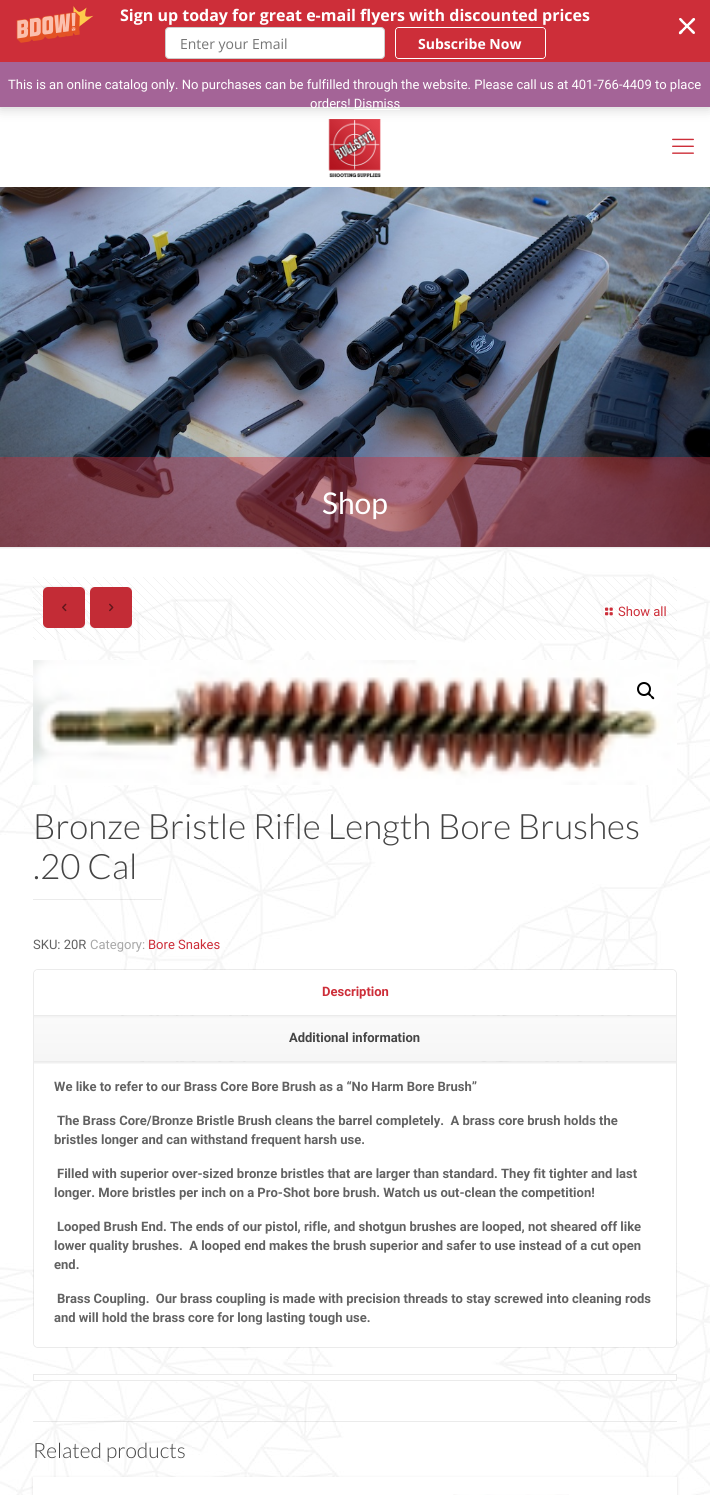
#include <cairo/cairo.h>
#include <math.h>
#include <stddef.h>


static void rounded_rect(cairo_t *cr, double x, double y, double w, double h, double r) {
  cairo_new_sub_path(cr);
  cairo_arc(cr, x + w - r, y + h - r, r, 0, M_PI / 2);
  cairo_arc(cr, x + r, y + h - r, r, M_PI / 2, M_PI);
  cairo_arc(cr, x + r, y + r, r, M_PI, 1.5 * M_PI);
  cairo_arc(cr, x + w - r, y + r, r, 1.5 * M_PI, 2 * M_PI);
  cairo_close_path(cr);
}

static void draw_shadow(cairo_t *cr, double x, double y, double w, double h, double r, double blur, double alpha) {
  cairo_push_group_with_content(cr, CAIRO_CONTENT_ALPHA);
  cairo_set_operator(cr, CAIRO_OPERATOR_SOURCE);
  for (int i = 15; i >= -15 && fmin(w, h) + blur * i / 3 > 0; i -= 2) {
    double e = blur * i / 6;
    cairo_set_source_rgba(cr, 0, 0, 0, alpha * erfc((i - 1) / 8.5) / 2);
    rounded_rect(cr, x - e, y - e, w + 2 * e, h + 2 * e, fmax(0, fmin(r + e + blur * .6, fmin(w, h) / 2 + e)));
    cairo_fill(cr);
  }
  cairo_pattern_t *soft = cairo_pop_group(cr);
  cairo_mask(cr, soft);
  cairo_pattern_destroy(soft);
}

static void draw_image(cairo_t *cr, const char *path, double x, double y, double w, double h) {
  cairo_surface_t *image = cairo_image_surface_create_from_png(path);
  cairo_save(cr);
  cairo_set_source_surface(cr, image, x, y);
  cairo_rectangle(cr, x, y, w, h);
  cairo_fill(cr);
  cairo_restore(cr);
  cairo_surface_destroy(image);
}

static void draw(cairo_t *cr) {
  cairo_set_source_rgb(cr, 252 / 255.0, 252 / 255.0, 252 / 255.0);
  cairo_paint(cr);
  cairo_set_source_rgb(cr, 1, 1, 1);
  cairo_rectangle(cr, 0, 107, 710, 80);
  cairo_fill(cr);
  draw_image(cr, "images/3.png", 328, 119, 53, 59);
  cairo_set_source_rgb(cr, 0, 0, 0);
  draw_shadow(cr, 0, 63, 710, 45, 0, 6.5, 0.2);
  cairo_set_source_rgb(cr, 205 / 255.0, 46 / 255.0, 57 / 255.0);
  cairo_rectangle(cr, 0, 0, 710, 62);
  cairo_fill(cr);
  draw_image(cr, "images/1.png", 16, 6, 78, 37);
  cairo_set_source_rgb(cr, 1, 1, 1);
  cairo_new_path(cr);
  cairo_move_to(cr, 687, 24.5);
  cairo_line_to(cr, 683, 20.5);
  cairo_curve_to(cr, 682.5, 19.5, 680.5, 17, 679.5, 18.5);
  cairo_curve_to(cr, 678.5, 20, 684.5, 25, 685.5, 26);
  cairo_line_to(cr, 681.5, 30);
  cairo_curve_to(cr, 681, 30.5, 677.5, 32.5, 679.5, 34);
  cairo_curve_to(cr, 680.5, 35, 682.5, 32.5, 683, 31.5);
  cairo_line_to(cr, 687, 27.5);
  cairo_curve_to(cr, 688, 28.5, 693, 34.5, 694.5, 33.5);
  cairo_curve_to(cr, 696, 32.5, 693.5, 30.5, 692.5, 30);
  cairo_line_to(cr, 688.5, 26);
  cairo_line_to(cr, 695, 20);
  cairo_curve_to(cr, 695.5, 18.5, 694, 17.5, 693, 18.5);
  cairo_close_path(cr);
  cairo_fill(cr);
  cairo_new_path(cr);
  cairo_move_to(cr, 687, 24.5);
  cairo_line_to(cr, 691, 20.5);
  cairo_curve_to(cr, 691.5, 19.5, 693.5, 17, 694.5, 18.5);
  cairo_curve_to(cr, 695.5, 20, 689.5, 25, 688.5, 26);
  cairo_curve_to(cr, 689.5, 27, 695.5, 32, 694.5, 33.5);
  cairo_curve_to(cr, 693.5, 35, 691.5, 32.5, 691, 31.5);
  cairo_line_to(cr, 687, 27.5);
  cairo_line_to(cr, 683, 31.5);
  cairo_curve_to(cr, 682.5, 32.5, 680.5, 35, 679.5, 34);
  cairo_curve_to(cr, 677.5, 32.5, 681, 30.5, 681.5, 30);
  cairo_line_to(cr, 685.5, 26);
  cairo_line_to(cr, 679.5, 20);
  cairo_curve_to(cr, 679, 19.5, 679, 19, 679.5, 18.5);
  cairo_curve_to(cr, 680, 18, 680.5, 18, 681, 18.5);
  cairo_close_path(cr);
  cairo_fill(cr);
  rounded_rect(cr, 165.5, 27.5, 219, 31, 3.5);
  cairo_fill_preserve(cr);
  cairo_set_source_rgb(cr, 204 / 255.0, 204 / 255.0, 204 / 255.0);
  cairo_set_line_width(cr, 1);
  cairo_stroke(cr);
  rounded_rect(cr, 395.5, 27.5, 150, 31, 3.5);
  cairo_set_source_rgb(cr, 1, 1, 1);
  cairo_stroke(cr);
  cairo_set_source_rgb(cr, 205 / 255.0, 46 / 255.0, 57 / 255.0);
  rounded_rect(cr, 396, 28, 149, 30, 3);
  cairo_fill(cr);
  cairo_set_source_rgb(cr, 164 / 255.0, 100 / 255.0, 151 / 255.0);
  cairo_rectangle(cr, 0, 62, 710, 45);
  cairo_fill(cr);
  cairo_set_source_rgb(cr, 1, 1, 1);
  cairo_rectangle(cr, 354, 109, 46, 1);
  cairo_fill(cr);
  draw_image(cr, "images/2.png", 0, 187, 710, 360);
  draw_image(cr, "images/4.png", 672, 138, 22, 16);
  cairo_set_source_rgba(cr, 205 / 255.0, 46 / 255.0, 57 / 255.0, 0.4);
  cairo_rectangle(cr, 0, 457, 710, 90);
  cairo_fill(cr);
  draw_image(cr, "images/6.png", 0, 548, 710, 947);
  draw_image(cr, "images/5.png", 0, 547, 710, 2);
  draw_image(cr, "images/7.png", 33, 577, 644, 63);
  cairo_set_source_rgb(cr, 205 / 255.0, 46 / 255.0, 57 / 255.0);
  rounded_rect(cr, 43, 587, 42, 41, 5);
  cairo_fill(cr);
  cairo_set_source_rgba(cr, 0, 0, 0, 0.05);
  cairo_rectangle(cr, 43, 587, 42, 41);
  cairo_fill(cr);
  draw_image(cr, "images/8.png", 62, 603, 5, 9);
  cairo_set_source_rgb(cr, 205 / 255.0, 46 / 255.0, 57 / 255.0);
  rounded_rect(cr, 90, 587, 42, 41, 5);
  cairo_fill(cr);
  cairo_set_source_rgba(cr, 0, 0, 0, 0.05);
  cairo_rectangle(cr, 90, 587, 42, 41);
  cairo_fill(cr);
  draw_image(cr, "images/9.png", 109, 603, 5, 9);
  draw_image(cr, "images/10.png", 605, 607, 8, 9);
  draw_image(cr, "images/11.png", 33, 660, 644, 125);
  cairo_set_source_rgb(cr, 1, 1, 1);
  cairo_arc(cr, 646, 691, 18, 0, 2 * M_PI);
  cairo_fill(cr);
  cairo_arc(cr, 644, 689, 6, 0, 2 * M_PI);
  cairo_set_source_rgb(cr, 0, 0, 0);
  cairo_set_line_width(cr, 2);
  cairo_stroke(cr);
  cairo_new_path(cr);
  cairo_move_to(cr, 648, 693);
  cairo_curve_to(cr, 649.5, 692, 651, 694.5, 651.5, 695.5);
  cairo_curve_to(cr, 652.5, 696, 655, 697.5, 654, 699);
  cairo_curve_to(cr, 652.5, 700, 651, 697.5, 650.5, 696.5);
  cairo_curve_to(cr, 649.5, 696, 647, 694.5, 648, 693);
  cairo_close_path(cr);
  cairo_fill(cr);
  cairo_set_source_rgba(cr, 0, 0, 0, 0.08);
  cairo_rectangle(cr, 33, 899, 129, 1);
  cairo_fill(cr);
  rounded_rect(cr, 33.5, 969.5, 643, 378, 4.5);
  cairo_set_line_width(cr, 1);
  cairo_stroke(cr);
  cairo_rectangle(cr, 34, 1061, 642, 1);
  cairo_fill(cr);
  cairo_rectangle(cr, 34, 1015, 642, 1);
  cairo_fill(cr);
  cairo_set_source_rgb(cr, 1, 1, 1);
  cairo_new_path(cr);
  cairo_move_to(cr, 38, 970);
  cairo_line_to(cr, 672, 970);
  cairo_curve_to(cr, 674, 970, 676, 972, 676, 974);
  cairo_line_to(cr, 676, 1015);
  cairo_line_to(cr, 34, 1015);
  cairo_line_to(cr, 34, 974);
  cairo_curve_to(cr, 34, 972, 36, 970, 38, 970);
  cairo_close_path(cr);
  cairo_fill(cr);
  draw_image(cr, "images/12.png", 34, 1016, 642, 45);
  cairo_new_path(cr);
  cairo_move_to(cr, 34, 1062);
  cairo_line_to(cr, 676, 1062);
  cairo_line_to(cr, 676, 1343);
  cairo_curve_to(cr, 676, 1345, 674, 1347, 672, 1347);
  cairo_line_to(cr, 38, 1347);
  cairo_curve_to(cr, 36, 1347, 34, 1345, 34, 1343);
  cairo_close_path(cr);
  cairo_fill(cr);
  draw_image(cr, "images/13.png", 34, 1062, 642, 2);
  cairo_rectangle(cr, 49, 1375, 628, 5);
  cairo_fill(cr);
  cairo_rectangle(cr, 33.5, 1374.5, 643, 6);
  cairo_set_source_rgb(cr, 235 / 255.0, 235 / 255.0, 235 / 255.0);
  cairo_stroke(cr);
  cairo_set_source_rgba(cr, 0, 0, 0, 0.08);
  cairo_rectangle(cr, 33, 1421, 644, 1);
  cairo_fill(cr);
  cairo_set_source_rgb(cr, 34 / 255.0, 25 / 255.0, 25 / 255.0);
  draw_shadow(cr, 33, 1478, 644, 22, 0, 1.5, 0.15);
  cairo_set_source_rgb(cr, 1, 1, 1);
  cairo_rectangle(cr, 33, 1477, 644, 18);
  cairo_fill(cr);
  draw_image(cr, "images/14.png", 453, 1494, 116, 1);
  cairo_select_font_face(cr, "Open Sans", CAIRO_FONT_SLANT_NORMAL, CAIRO_FONT_WEIGHT_BOLD);
  cairo_set_font_size(cr, 16);
  cairo_move_to(cr, 120, 21);
  cairo_show_text(cr, "Sign up today for great e-mail flyers with discounted prices");
  cairo_select_font_face(cr, "Open Sans", CAIRO_FONT_SLANT_NORMAL, CAIRO_FONT_WEIGHT_NORMAL);
  cairo_set_font_size(cr, 14);
  cairo_set_source_rgb(cr, 117 / 255.0, 117 / 255.0, 117 / 255.0);
  cairo_move_to(cr, 180, 49);
  cairo_show_text(cr, "Enter your Email");
  cairo_select_font_face(cr, "Open Sans", CAIRO_FONT_SLANT_NORMAL, CAIRO_FONT_WEIGHT_BOLD);
  cairo_set_source_rgb(cr, 1, 1, 1);
  cairo_move_to(cr, 418, 49);
  cairo_show_text(cr, "Subscribe Now");
  cairo_select_font_face(cr, "Roboto", CAIRO_FONT_SLANT_NORMAL, CAIRO_FONT_WEIGHT_NORMAL);
  cairo_set_font_size(cr, 13);
  cairo_move_to(cr, 8, 89);
  cairo_show_text(cr, "This is an online catalog only. No purchases can be fulfilled through the website. Please call us at 401-766-4409 to place");
  cairo_move_to(cr, 310, 108);
  cairo_show_text(cr, "orders! Dismiss");
  cairo_select_font_face(cr, "Lato", CAIRO_FONT_SLANT_NORMAL, CAIRO_FONT_WEIGHT_NORMAL);
  cairo_set_font_size(cr, 30);
  cairo_move_to(cr, 322, 514);
  cairo_show_text(cr, "Shop");
  cairo_select_font_face(cr, "Roboto", CAIRO_FONT_SLANT_NORMAL, CAIRO_FONT_WEIGHT_NORMAL);
  cairo_set_font_size(cr, 13);
  cairo_set_source_rgb(cr, 205 / 255.0, 46 / 255.0, 57 / 255.0);
  cairo_move_to(cr, 618, 616);
  cairo_show_text(cr, "Show all");
  cairo_select_font_face(cr, "Lato Light", CAIRO_FONT_SLANT_NORMAL, CAIRO_FONT_WEIGHT_NORMAL);
  cairo_set_font_size(cr, 35);
  cairo_set_source_rgb(cr, 68 / 255.0, 68 / 255.0, 68 / 255.0);
  cairo_move_to(cr, 33, 839);
  cairo_show_text(cr, "Bronze Bristle Rifle Length Bore Brushes");
  cairo_move_to(cr, 33, 879);
  cairo_show_text(cr, ".20 Cal");
  cairo_select_font_face(cr, "Roboto", CAIRO_FONT_SLANT_NORMAL, CAIRO_FONT_WEIGHT_NORMAL);
  cairo_set_font_size(cr, 13);
  cairo_set_source_rgb(cr, 98 / 255.0, 98 / 255.0, 98 / 255.0);
  cairo_move_to(cr, 33, 949);
  cairo_show_text(cr, "SKU: 20R");
  cairo_set_source_rgb(cr, 168 / 255.0, 168 / 255.0, 168 / 255.0);
  cairo_move_to(cr, 90, 949);
  cairo_show_text(cr, "Category:");
  cairo_set_source_rgb(cr, 205 / 255.0, 46 / 255.0, 57 / 255.0);
  cairo_move_to(cr, 148, 949);
  cairo_show_text(cr, "Bore Snakes");
  cairo_select_font_face(cr, "Roboto", CAIRO_FONT_SLANT_NORMAL, CAIRO_FONT_WEIGHT_BOLD);
  cairo_move_to(cr, 322, 996);
  cairo_show_text(cr, "Description");
  cairo_set_source_rgb(cr, 68 / 255.0, 68 / 255.0, 68 / 255.0);
  cairo_move_to(cr, 289, 1042);
  cairo_show_text(cr, "Additional information");
  cairo_set_source_rgb(cr, 98 / 255.0, 98 / 255.0, 98 / 255.0);
  cairo_move_to(cr, 54, 1091);
  cairo_show_text(cr, "We like to refer to our Brass Core Bore Brush as a “No Harm Bore Brush”");
  cairo_move_to(cr, 57, 1125);
  cairo_show_text(cr, "The Brass Core/Bronze Bristle Brush cleans the barrel completely.  A brass core brush holds the");
  cairo_move_to(cr, 54, 1144);
  cairo_show_text(cr, "bristles longer and can withstand frequent harsh use.");
  cairo_move_to(cr, 57, 1178);
  cairo_show_text(cr, "Filled with superior over-sized bronze bristles that are larger than standard. They fit tighter and last");
  cairo_move_to(cr, 54, 1197);
  cairo_show_text(cr, "longer. More bristles per inch on a Pro-Shot bore brush. Watch us out-clean the competition!");
  cairo_move_to(cr, 57, 1231);
  cairo_show_text(cr, "Looped Brush End. The ends of our pistol, rifle, and shotgun brushes are looped, not sheared off like");
  cairo_move_to(cr, 54, 1250);
  cairo_show_text(cr, "lower quality brushes.  A looped end makes the brush superior and safer to use instead of a cut open");
  cairo_move_to(cr, 54, 1269);
  cairo_show_text(cr, "end.");
  cairo_move_to(cr, 57, 1303);
  cairo_show_text(cr, "Brass Coupling.  Our brass coupling is made with precision threads to stay screwed into cleaning rods");
  cairo_move_to(cr, 54, 1322);
  cairo_show_text(cr, "and will hold the brass core for long lasting tough use.");
  cairo_select_font_face(cr, "Lato Light", CAIRO_FONT_SLANT_NORMAL, CAIRO_FONT_WEIGHT_NORMAL);
  cairo_set_font_size(cr, 21);
  cairo_set_source_rgb(cr, 68 / 255.0, 68 / 255.0, 68 / 255.0);
  cairo_move_to(cr, 33, 1458);
  cairo_show_text(cr, "Related products");
}

int main(void) {
  cairo_surface_t *surface = cairo_image_surface_create(CAIRO_FORMAT_RGB24, 710, 1495);
  cairo_t *cr = cairo_create(surface);
  cairo_font_options_t *options = cairo_font_options_create();
  cairo_font_options_set_hint_metrics(options, CAIRO_HINT_METRICS_OFF);
  cairo_font_options_set_hint_style(options, CAIRO_HINT_STYLE_NONE);
  cairo_set_font_options(cr, options);
  cairo_set_miter_limit(cr, 4);
  draw(cr);
  cairo_surface_write_to_png(surface, "out.png");
  cairo_font_options_destroy(options);
  cairo_destroy(cr);
  cairo_surface_destroy(surface);
  return 0;
}
